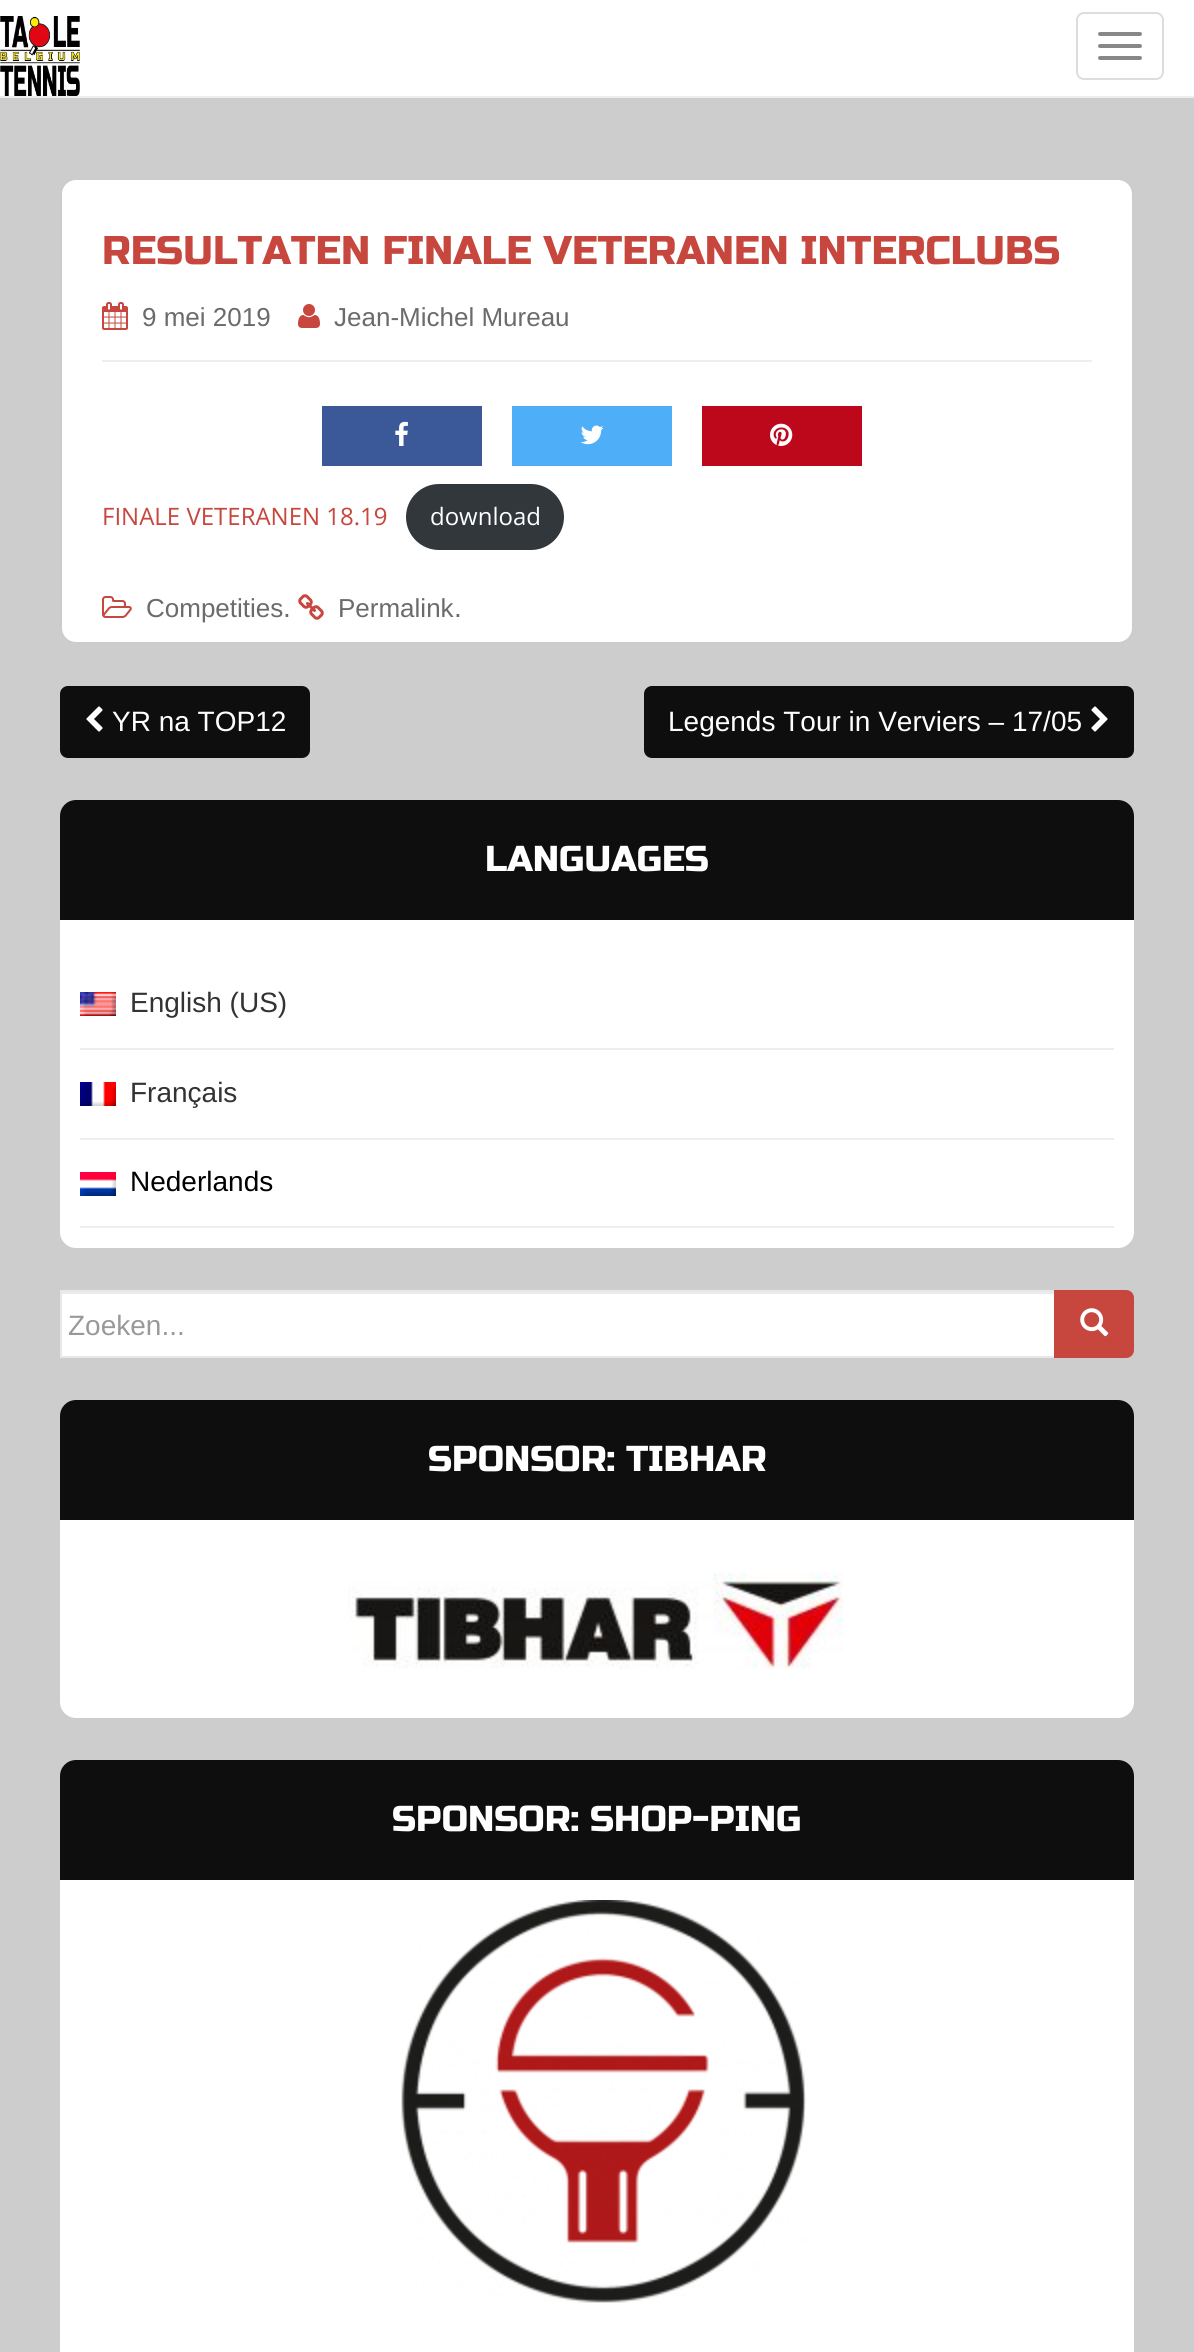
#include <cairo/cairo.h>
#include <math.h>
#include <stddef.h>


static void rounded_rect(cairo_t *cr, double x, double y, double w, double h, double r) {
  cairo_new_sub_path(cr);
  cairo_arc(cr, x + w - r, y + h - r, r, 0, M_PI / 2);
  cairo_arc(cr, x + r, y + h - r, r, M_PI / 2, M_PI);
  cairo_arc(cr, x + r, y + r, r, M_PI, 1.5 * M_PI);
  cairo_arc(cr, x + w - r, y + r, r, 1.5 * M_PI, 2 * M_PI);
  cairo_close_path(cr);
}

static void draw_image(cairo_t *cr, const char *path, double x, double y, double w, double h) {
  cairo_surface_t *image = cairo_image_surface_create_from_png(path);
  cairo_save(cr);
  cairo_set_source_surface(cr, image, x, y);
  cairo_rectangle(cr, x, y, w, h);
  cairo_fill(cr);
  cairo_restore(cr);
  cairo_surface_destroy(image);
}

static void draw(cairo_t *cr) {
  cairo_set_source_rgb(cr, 205 / 255.0, 205 / 255.0, 205 / 255.0);
  cairo_paint(cr);
  cairo_set_source_rgb(cr, 1, 1, 1);
  cairo_rectangle(cr, 0, 0, 1194, 96);
  cairo_fill(cr);
  cairo_set_source_rgb(cr, 238 / 255.0, 238 / 255.0, 238 / 255.0);
  cairo_rectangle(cr, 0, 96, 1194, 2);
  cairo_fill(cr);
  draw_image(cr, "images/1.png", 0, 16, 80, 80);
  rounded_rect(cr, 1077, 13, 86, 66, 7);
  cairo_set_source_rgb(cr, 221 / 255.0, 221 / 255.0, 221 / 255.0);
  cairo_stroke(cr);
  cairo_set_source_rgb(cr, 136 / 255.0, 136 / 255.0, 136 / 255.0);
  rounded_rect(cr, 1098, 32, 44, 4, 2);
  cairo_fill(cr);
  rounded_rect(cr, 1098, 44, 44, 4, 2);
  cairo_fill(cr);
  rounded_rect(cr, 1098, 56, 44, 4, 2);
  cairo_fill(cr);
  cairo_set_source_rgb(cr, 1, 1, 1);
  rounded_rect(cr, 61, 179, 1072, 464, 15);
  cairo_fill_preserve(cr);
  cairo_set_source_rgb(cr, 204 / 255.0, 204 / 255.0, 204 / 255.0);
  cairo_stroke(cr);
  cairo_set_source_rgb(cr, 238 / 255.0, 238 / 255.0, 238 / 255.0);
  cairo_rectangle(cr, 102, 360, 990, 2);
  cairo_fill(cr);
  draw_image(cr, "images/2.png", 102, 302, 26, 28);
  draw_image(cr, "images/3.png", 298, 304, 22, 24);
  cairo_set_source_rgb(cr, 59 / 255.0, 89 / 255.0, 152 / 255.0);
  cairo_rectangle(cr, 322, 406, 160, 60);
  cairo_fill(cr);
  draw_image(cr, "images/4.png", 395, 421, 13, 25);
  cairo_set_source_rgb(cr, 78 / 255.0, 174 / 255.0, 248 / 255.0);
  cairo_rectangle(cr, 512, 406, 160, 60);
  cairo_fill(cr);
  draw_image(cr, "images/5.png", 580, 425, 24, 20);
  cairo_set_source_rgb(cr, 189 / 255.0, 8 / 255.0, 28 / 255.0);
  cairo_rectangle(cr, 702, 406, 160, 60);
  cairo_fill(cr);
  draw_image(cr, "images/6.png", 770, 423, 23, 23);
  cairo_set_source_rgb(cr, 50 / 255.0, 55 / 255.0, 60 / 255.0);
  rounded_rect(cr, 406, 484, 158, 66, 33);
  cairo_fill(cr);
  draw_image(cr, "images/7.png", 102, 596, 30, 22);
  draw_image(cr, "images/8.png", 298, 594, 26, 26);
  cairo_set_source_rgb(cr, 14 / 255.0, 14 / 255.0, 14 / 255.0);
  rounded_rect(cr, 60, 686, 250, 72, 8);
  cairo_fill(cr);
  draw_image(cr, "images/9.png", 86, 706, 17, 26);
  rounded_rect(cr, 644, 686, 490, 72, 8);
  cairo_fill(cr);
  draw_image(cr, "images/10.png", 1091, 706, 17, 26);
  cairo_set_source_rgb(cr, 1, 1, 1);
  rounded_rect(cr, 60, 800, 1074, 448, 16);
  cairo_fill(cr);
  cairo_set_source_rgb(cr, 14 / 255.0, 14 / 255.0, 14 / 255.0);
  cairo_new_path(cr);
  cairo_move_to(cr, 76, 800);
  cairo_line_to(cr, 1118, 800);
  cairo_curve_to(cr, 1127, 800, 1134, 807, 1134, 816);
  cairo_line_to(cr, 1134, 920);
  cairo_line_to(cr, 60, 920);
  cairo_line_to(cr, 60, 816);
  cairo_curve_to(cr, 60, 807, 67, 800, 76, 800);
  cairo_close_path(cr);
  cairo_fill(cr);
  cairo_set_source_rgb(cr, 238 / 255.0, 238 / 255.0, 238 / 255.0);
  cairo_rectangle(cr, 80, 1048, 1034, 2);
  cairo_fill(cr);
  draw_image(cr, "images/11.png", 80, 992, 36, 24);
  cairo_rectangle(cr, 80, 1138, 1034, 2);
  cairo_fill(cr);
  draw_image(cr, "images/12.png", 80, 1082, 36, 24);
  cairo_rectangle(cr, 80, 1226, 1034, 2);
  cairo_fill(cr);
  draw_image(cr, "images/13.png", 80, 1172, 36, 24);
  cairo_set_source_rgb(cr, 1, 1, 1);
  cairo_rectangle(cr, 62, 1294, 992, 62);
  cairo_fill(cr);
  cairo_set_source_rgb(cr, 236 / 255.0, 236 / 255.0, 236 / 255.0);
  cairo_rectangle(cr, 62, 1292, 992, 2);
  cairo_fill(cr);
  cairo_rectangle(cr, 61, 1291, 994, 66);
  cairo_set_source_rgb(cr, 232 / 255.0, 232 / 255.0, 232 / 255.0);
  cairo_stroke(cr);
  cairo_set_source_rgb(cr, 199 / 255.0, 70 / 255.0, 61 / 255.0);
  cairo_new_path(cr);
  cairo_move_to(cr, 1055, 1291);
  cairo_line_to(cr, 1126, 1291);
  cairo_curve_to(cr, 1130, 1291, 1133, 1294, 1133, 1298);
  cairo_line_to(cr, 1133, 1350);
  cairo_curve_to(cr, 1133, 1354, 1130, 1357, 1126, 1357);
  cairo_line_to(cr, 1055, 1357);
  cairo_close_path(cr);
  cairo_fill_preserve(cr);
  cairo_stroke(cr);
  draw_image(cr, "images/14.png", 1080, 1308, 29, 29);
  cairo_set_source_rgb(cr, 1, 1, 1);
  rounded_rect(cr, 60, 1400, 1074, 318, 16);
  cairo_fill(cr);
  cairo_set_source_rgb(cr, 14 / 255.0, 14 / 255.0, 14 / 255.0);
  cairo_new_path(cr);
  cairo_move_to(cr, 76, 1400);
  cairo_line_to(cr, 1118, 1400);
  cairo_curve_to(cr, 1127, 1400, 1134, 1407, 1134, 1416);
  cairo_line_to(cr, 1134, 1520);
  cairo_line_to(cr, 60, 1520);
  cairo_line_to(cr, 60, 1416);
  cairo_curve_to(cr, 60, 1407, 67, 1400, 76, 1400);
  cairo_close_path(cr);
  cairo_fill(cr);
  draw_image(cr, "images/15.png", 348, 1572, 496, 98);
  cairo_set_source_rgb(cr, 1, 1, 1);
  rounded_rect(cr, 60, 1760, 1074, 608, 16);
  cairo_fill(cr);
  cairo_set_source_rgb(cr, 14 / 255.0, 14 / 255.0, 14 / 255.0);
  cairo_new_path(cr);
  cairo_move_to(cr, 76, 1760);
  cairo_line_to(cr, 1118, 1760);
  cairo_curve_to(cr, 1127, 1760, 1134, 1767, 1134, 1776);
  cairo_line_to(cr, 1134, 1880);
  cairo_line_to(cr, 60, 1880);
  cairo_line_to(cr, 60, 1776);
  cairo_curve_to(cr, 60, 1767, 67, 1760, 76, 1760);
  cairo_close_path(cr);
  cairo_fill(cr);
  draw_image(cr, "images/16.png", 401, 1900, 405, 403);
  cairo_select_font_face(cr, "Russo One", CAIRO_FONT_SLANT_NORMAL, CAIRO_FONT_WEIGHT_NORMAL);
  cairo_set_font_size(cr, 40);
  cairo_set_source_rgb(cr, 199 / 255.0, 70 / 255.0, 61 / 255.0);
  cairo_move_to(cr, 102, 264);
  cairo_show_text(cr, "RESULTATEN FINALE VETERANEN INTERCLUBS");
  cairo_select_font_face(cr, "Liberation Sans", CAIRO_FONT_SLANT_NORMAL, CAIRO_FONT_WEIGHT_NORMAL);
  cairo_set_font_size(cr, 26);
  cairo_set_source_rgb(cr, 107 / 255.0, 107 / 255.0, 107 / 255.0);
  cairo_move_to(cr, 142, 326);
  cairo_show_text(cr, "9 mei 2019");
  cairo_move_to(cr, 334, 326);
  cairo_show_text(cr, "Jean-Michel Mureau");
  cairo_select_font_face(cr, "Open Sans", CAIRO_FONT_SLANT_NORMAL, CAIRO_FONT_WEIGHT_NORMAL);
  cairo_set_font_size(cr, 24);
  cairo_set_source_rgb(cr, 199 / 255.0, 70 / 255.0, 61 / 255.0);
  cairo_move_to(cr, 102, 525);
  cairo_show_text(cr, "FINALE VETERANEN 18.19");
  cairo_set_source_rgb(cr, 1, 1, 1);
  cairo_move_to(cr, 430, 525);
  cairo_show_text(cr, "download");
  cairo_select_font_face(cr, "Liberation Sans", CAIRO_FONT_SLANT_NORMAL, CAIRO_FONT_WEIGHT_NORMAL);
  cairo_set_font_size(cr, 26);
  cairo_set_source_rgb(cr, 107 / 255.0, 107 / 255.0, 107 / 255.0);
  cairo_move_to(cr, 146, 617);
  cairo_show_text(cr, "Competities");
  cairo_set_font_size(cr, 28);
  cairo_move_to(cr, 283, 617);
  cairo_show_text(cr, ".");
  cairo_set_font_size(cr, 26);
  cairo_move_to(cr, 338, 617);
  cairo_show_text(cr, "Permalink");
  cairo_set_font_size(cr, 28);
  cairo_move_to(cr, 454, 617);
  cairo_show_text(cr, ".");
  cairo_set_source_rgb(cr, 1, 1, 1);
  cairo_move_to(cr, 112, 731);
  cairo_show_text(cr, "YR na TOP12");
  cairo_move_to(cr, 668, 731);
  cairo_show_text(cr, "Legends Tour in Verviers – 17/05");
  cairo_select_font_face(cr, "Russo One", CAIRO_FONT_SLANT_NORMAL, CAIRO_FONT_WEIGHT_NORMAL);
  cairo_set_font_size(cr, 36);
  cairo_move_to(cr, 485, 871);
  cairo_show_text(cr, "LANGUAGES");
  cairo_select_font_face(cr, "Liberation Sans", CAIRO_FONT_SLANT_NORMAL, CAIRO_FONT_WEIGHT_NORMAL);
  cairo_set_font_size(cr, 28);
  cairo_set_source_rgb(cr, 51 / 255.0, 51 / 255.0, 51 / 255.0);
  cairo_move_to(cr, 130, 1012);
  cairo_show_text(cr, "English (US)");
  cairo_move_to(cr, 130, 1102);
  cairo_show_text(cr, "Français");
  cairo_set_source_rgb(cr, 0, 0, 0);
  cairo_move_to(cr, 130, 1191);
  cairo_show_text(cr, "Nederlands");
  cairo_set_source_rgb(cr, 153 / 255.0, 153 / 255.0, 153 / 255.0);
  cairo_move_to(cr, 68, 1335);
  cairo_show_text(cr, "Zoeken...");
  cairo_select_font_face(cr, "Russo One", CAIRO_FONT_SLANT_NORMAL, CAIRO_FONT_WEIGHT_NORMAL);
  cairo_set_font_size(cr, 36);
  cairo_set_source_rgb(cr, 1, 1, 1);
  cairo_move_to(cr, 428, 1471);
  cairo_show_text(cr, "SPONSOR: TIBHAR");
  cairo_move_to(cr, 392, 1831);
  cairo_show_text(cr, "SPONSOR: SHOP-PING");
}

int main(void) {
  cairo_surface_t *surface = cairo_image_surface_create(CAIRO_FORMAT_RGB24, 1194, 2352);
  cairo_t *cr = cairo_create(surface);
  cairo_font_options_t *options = cairo_font_options_create();
  cairo_font_options_set_hint_metrics(options, CAIRO_HINT_METRICS_OFF);
  cairo_font_options_set_hint_style(options, CAIRO_HINT_STYLE_NONE);
  cairo_set_font_options(cr, options);
  cairo_set_miter_limit(cr, 4);
  draw(cr);
  cairo_surface_write_to_png(surface, "out.png");
  cairo_font_options_destroy(options);
  cairo_destroy(cr);
  cairo_surface_destroy(surface);
  return 0;
}
